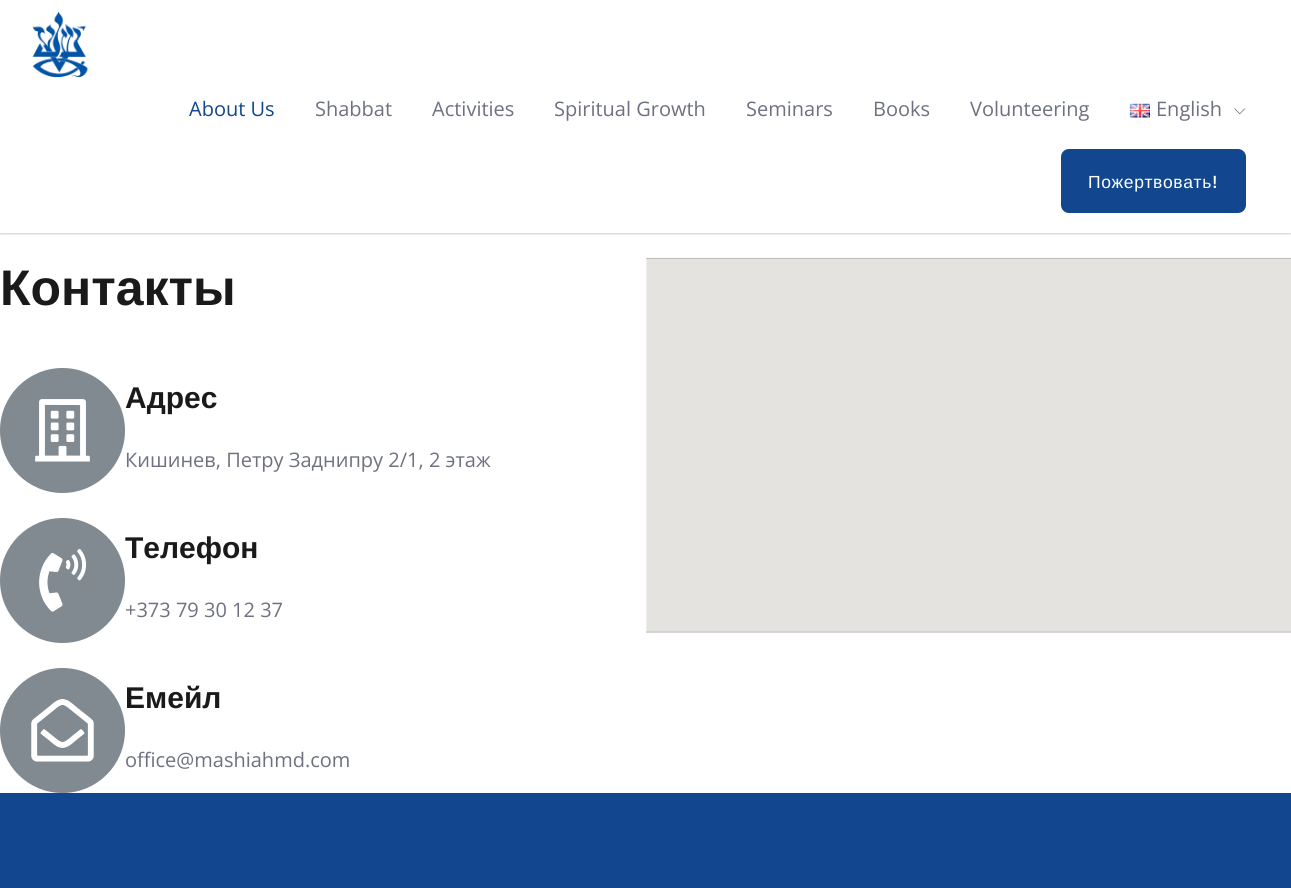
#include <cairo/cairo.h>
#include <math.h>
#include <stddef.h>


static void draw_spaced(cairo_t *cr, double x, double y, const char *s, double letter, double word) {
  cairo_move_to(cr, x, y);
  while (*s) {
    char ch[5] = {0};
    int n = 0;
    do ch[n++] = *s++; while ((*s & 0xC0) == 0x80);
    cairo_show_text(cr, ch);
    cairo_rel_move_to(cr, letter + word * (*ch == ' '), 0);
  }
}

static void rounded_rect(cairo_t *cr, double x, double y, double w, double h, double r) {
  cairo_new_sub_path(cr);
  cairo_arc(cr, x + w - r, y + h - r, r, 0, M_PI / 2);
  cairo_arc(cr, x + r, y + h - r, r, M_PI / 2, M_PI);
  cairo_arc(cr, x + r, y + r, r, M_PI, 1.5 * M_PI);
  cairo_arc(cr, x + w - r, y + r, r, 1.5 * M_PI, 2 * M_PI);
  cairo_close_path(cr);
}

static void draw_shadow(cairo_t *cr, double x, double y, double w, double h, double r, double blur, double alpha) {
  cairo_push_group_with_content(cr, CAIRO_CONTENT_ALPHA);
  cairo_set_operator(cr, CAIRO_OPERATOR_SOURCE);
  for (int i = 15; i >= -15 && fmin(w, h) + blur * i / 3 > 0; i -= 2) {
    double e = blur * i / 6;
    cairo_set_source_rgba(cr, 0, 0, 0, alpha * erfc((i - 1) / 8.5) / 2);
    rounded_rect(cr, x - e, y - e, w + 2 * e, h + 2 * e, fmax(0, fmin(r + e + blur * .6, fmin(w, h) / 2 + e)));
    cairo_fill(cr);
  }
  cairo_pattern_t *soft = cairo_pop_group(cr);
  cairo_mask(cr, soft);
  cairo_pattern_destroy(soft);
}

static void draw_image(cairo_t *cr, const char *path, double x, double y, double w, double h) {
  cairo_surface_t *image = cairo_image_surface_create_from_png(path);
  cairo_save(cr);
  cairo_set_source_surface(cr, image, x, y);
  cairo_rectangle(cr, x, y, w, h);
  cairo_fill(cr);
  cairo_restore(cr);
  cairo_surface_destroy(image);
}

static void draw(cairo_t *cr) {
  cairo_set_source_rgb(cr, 1, 1, 1);
  cairo_paint(cr);
  cairo_set_source_rgb(cr, 0, 0, 0);
  draw_shadow(cr, 0, 1, 1291, 233, 0, 1, 0.2);
  cairo_set_source_rgb(cr, 1, 1, 1);
  cairo_rectangle(cr, 0, 0, 1291, 233);
  cairo_fill(cr);
  draw_image(cr, "images/1.png", 32, 11, 56, 67);
  draw_image(cr, "images/2.png", 1129, 103, 21, 15);
  draw_image(cr, "images/3.png", 1234, 108, 12, 7);
  cairo_set_source_rgb(cr, 18 / 255.0, 71 / 255.0, 144 / 255.0);
  rounded_rect(cr, 1061, 149, 185, 64, 8);
  cairo_fill(cr);
  cairo_set_source_rgb(cr, 129 / 255.0, 138 / 255.0, 145 / 255.0);
  cairo_arc(cr, 62.5, 430.5, 62.5, 0, 2 * M_PI);
  cairo_fill(cr);
  draw_image(cr, "images/4.png", 35, 399, 55, 63);
  cairo_arc(cr, 62.5, 580.5, 62.5, 0, 2 * M_PI);
  cairo_fill(cr);
  draw_image(cr, "images/5.png", 39, 549, 48, 63);
  cairo_arc(cr, 62.5, 730.5, 62.5, 0, 2 * M_PI);
  cairo_fill(cr);
  draw_image(cr, "images/6.png", 31, 699, 63, 63);
  draw_image(cr, "images/7.png", 646, 257, 645, 376);
  cairo_set_source_rgb(cr, 18 / 255.0, 71 / 255.0, 144 / 255.0);
  cairo_rectangle(cr, 0, 793, 1291, 95);
  cairo_fill(cr);
  cairo_select_font_face(cr, "Open Sans", CAIRO_FONT_SLANT_NORMAL, CAIRO_FONT_WEIGHT_NORMAL);
  cairo_set_font_size(cr, 20);
  cairo_move_to(cr, 189, 116);
  cairo_show_text(cr, "About Us");
  cairo_set_source_rgb(cr, 110 / 255.0, 113 / 255.0, 128 / 255.0);
  cairo_move_to(cr, 315, 116);
  cairo_show_text(cr, "Shabbat");
  cairo_move_to(cr, 432, 116);
  cairo_show_text(cr, "Activities");
  cairo_move_to(cr, 554, 116);
  cairo_show_text(cr, "Spiritual Growth");
  cairo_move_to(cr, 746, 116);
  cairo_show_text(cr, "Seminars");
  cairo_move_to(cr, 873, 116);
  cairo_show_text(cr, "Books");
  cairo_move_to(cr, 970, 116);
  cairo_show_text(cr, "Volunteering");
  cairo_move_to(cr, 1156, 116);
  cairo_show_text(cr, "English");
  cairo_select_font_face(cr, "Liberation Sans", CAIRO_FONT_SLANT_NORMAL, CAIRO_FONT_WEIGHT_NORMAL);
  cairo_set_font_size(cr, 17.5);
  cairo_set_source_rgb(cr, 1, 1, 1);
  draw_spaced(cr, 1088, 188, "Пожертвовать", 0.6, 0);
  cairo_select_font_face(cr, "Poppins Medium", CAIRO_FONT_SLANT_NORMAL, CAIRO_FONT_WEIGHT_NORMAL);
  draw_spaced(cr, 1212, 188, "!", 0.6, 0);
  cairo_select_font_face(cr, "Liberation Sans", CAIRO_FONT_SLANT_NORMAL, CAIRO_FONT_WEIGHT_BOLD);
  cairo_set_font_size(cr, 50);
  cairo_set_source_rgb(cr, 26 / 255.0, 26 / 255.0, 26 / 255.0);
  cairo_move_to(cr, 0, 305);
  cairo_show_text(cr, "Контакты");
  cairo_set_font_size(cr, 30);
  cairo_move_to(cr, 125, 408);
  cairo_show_text(cr, "Адрес");
  cairo_select_font_face(cr, "Open Sans", CAIRO_FONT_SLANT_NORMAL, CAIRO_FONT_WEIGHT_NORMAL);
  cairo_set_font_size(cr, 20);
  cairo_set_source_rgb(cr, 110 / 255.0, 113 / 255.0, 128 / 255.0);
  cairo_move_to(cr, 125, 467);
  cairo_show_text(cr, "Кишинев, Петру Заднипру 2/1, 2 этаж");
  cairo_select_font_face(cr, "Liberation Sans", CAIRO_FONT_SLANT_NORMAL, CAIRO_FONT_WEIGHT_BOLD);
  cairo_set_font_size(cr, 30);
  cairo_set_source_rgb(cr, 26 / 255.0, 26 / 255.0, 26 / 255.0);
  cairo_move_to(cr, 125, 558);
  cairo_show_text(cr, "Телефон");
  cairo_select_font_face(cr, "Open Sans", CAIRO_FONT_SLANT_NORMAL, CAIRO_FONT_WEIGHT_NORMAL);
  cairo_set_font_size(cr, 20);
  cairo_set_source_rgb(cr, 110 / 255.0, 113 / 255.0, 128 / 255.0);
  cairo_move_to(cr, 125, 617);
  cairo_show_text(cr, "+373 79 30 12 37");
  cairo_select_font_face(cr, "Liberation Sans", CAIRO_FONT_SLANT_NORMAL, CAIRO_FONT_WEIGHT_BOLD);
  cairo_set_font_size(cr, 30);
  cairo_set_source_rgb(cr, 26 / 255.0, 26 / 255.0, 26 / 255.0);
  cairo_move_to(cr, 125, 708);
  cairo_show_text(cr, "Емейл");
  cairo_select_font_face(cr, "Open Sans", CAIRO_FONT_SLANT_NORMAL, CAIRO_FONT_WEIGHT_NORMAL);
  cairo_set_font_size(cr, 20);
  cairo_set_source_rgb(cr, 110 / 255.0, 113 / 255.0, 128 / 255.0);
  cairo_move_to(cr, 125, 767);
  cairo_show_text(cr, "office@mashiahmd.com");
}

int main(void) {
  cairo_surface_t *surface = cairo_image_surface_create(CAIRO_FORMAT_RGB24, 1291, 888);
  cairo_t *cr = cairo_create(surface);
  cairo_font_options_t *options = cairo_font_options_create();
  cairo_font_options_set_hint_metrics(options, CAIRO_HINT_METRICS_OFF);
  cairo_font_options_set_hint_style(options, CAIRO_HINT_STYLE_NONE);
  cairo_set_font_options(cr, options);
  cairo_set_miter_limit(cr, 4);
  draw(cr);
  cairo_surface_write_to_png(surface, "out.png");
  cairo_font_options_destroy(options);
  cairo_destroy(cr);
  cairo_surface_destroy(surface);
  return 0;
}
